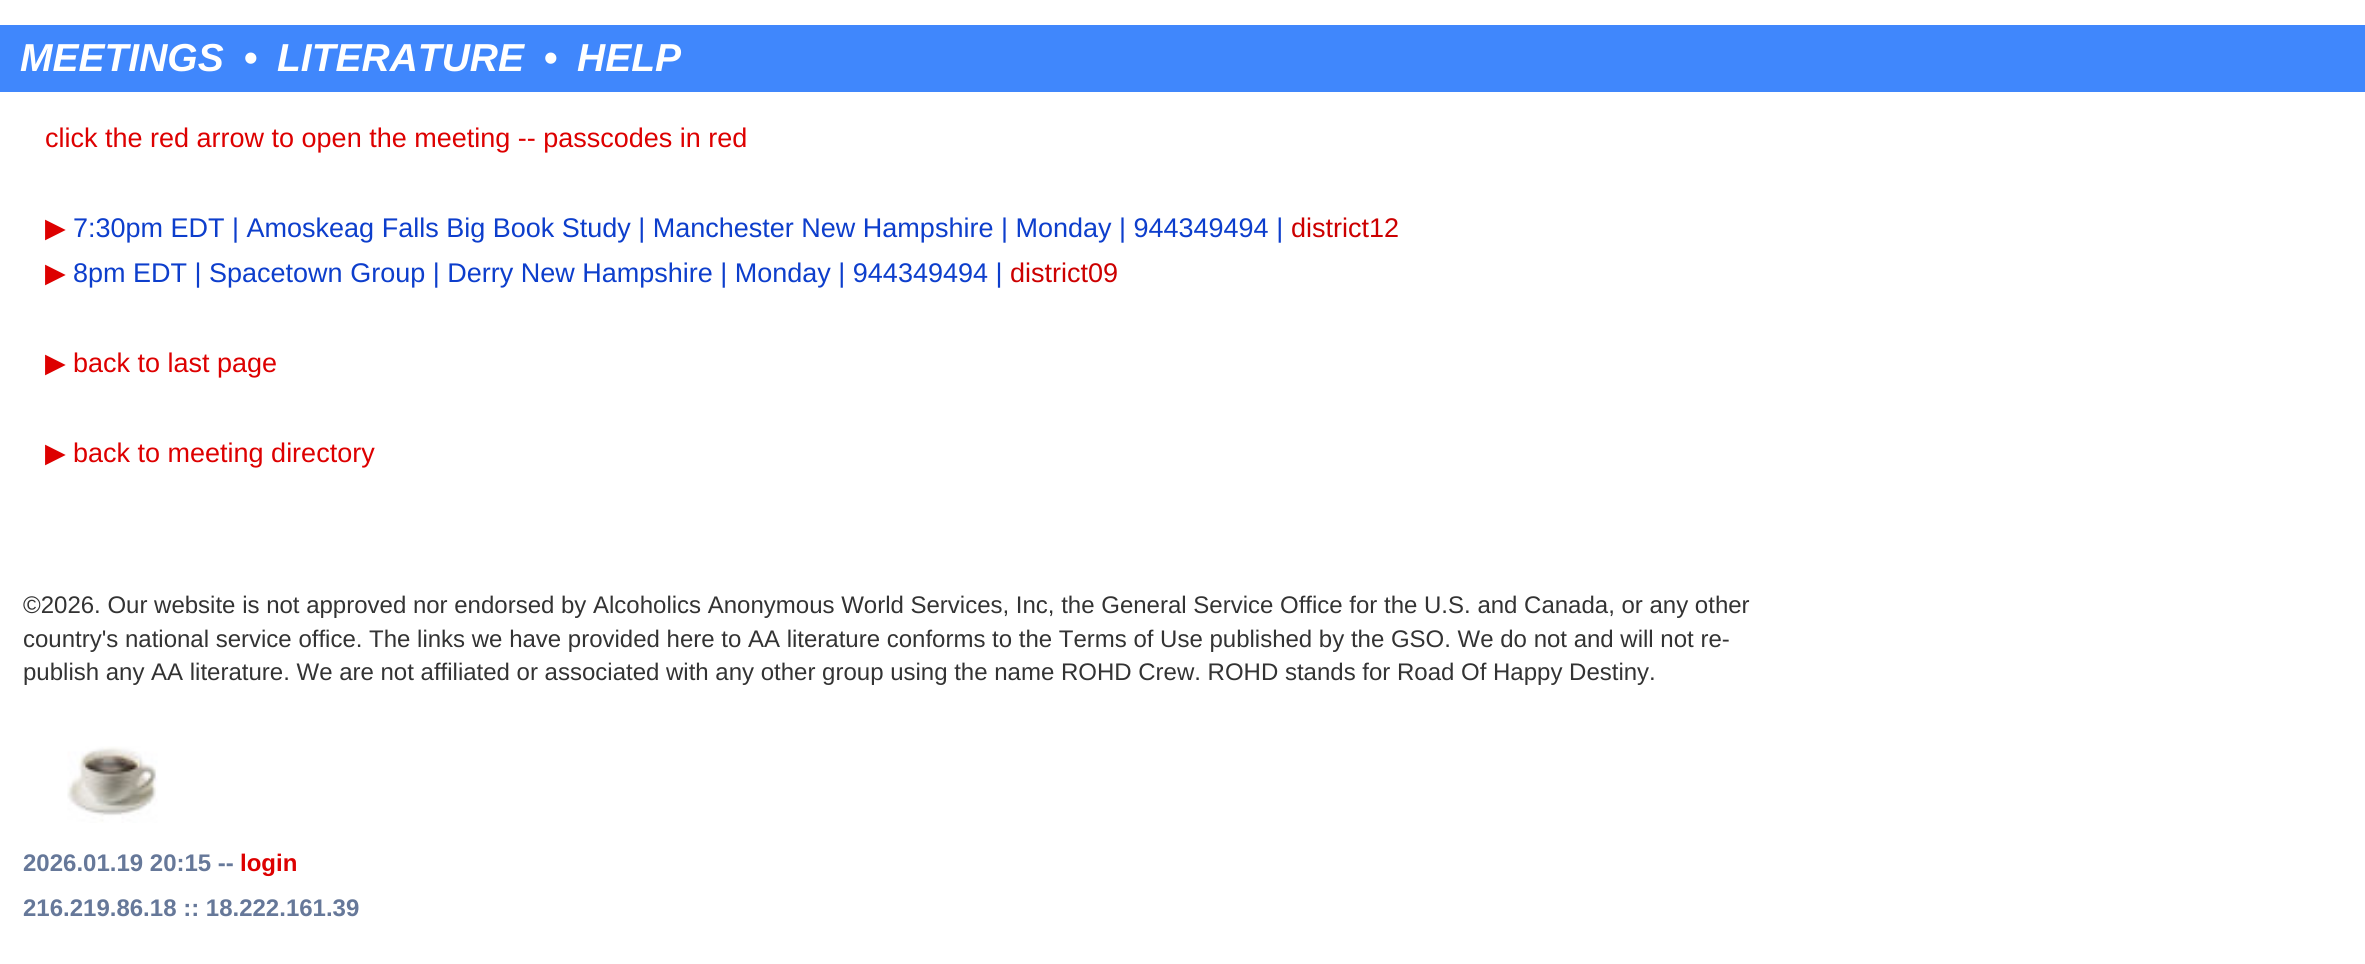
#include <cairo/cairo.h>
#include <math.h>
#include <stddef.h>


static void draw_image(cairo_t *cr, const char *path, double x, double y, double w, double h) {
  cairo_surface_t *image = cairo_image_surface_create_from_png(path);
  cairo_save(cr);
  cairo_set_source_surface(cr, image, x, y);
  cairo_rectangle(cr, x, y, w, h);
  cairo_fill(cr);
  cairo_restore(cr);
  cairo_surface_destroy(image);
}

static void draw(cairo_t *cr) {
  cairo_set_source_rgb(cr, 1, 1, 1);
  cairo_paint(cr);
  cairo_set_source_rgb(cr, 64 / 255.0, 135 / 255.0, 252 / 255.0);
  cairo_rectangle(cr, 0, 25, 2365, 67);
  cairo_fill(cr);
  draw_image(cr, "images/1.png", 67, 746, 91, 77);
  cairo_select_font_face(cr, "Liberation Sans", CAIRO_FONT_SLANT_ITALIC, CAIRO_FONT_WEIGHT_BOLD);
  cairo_set_font_size(cr, 39);
  cairo_set_source_rgb(cr, 1, 1, 1);
  cairo_move_to(cr, 20, 71);
  cairo_show_text(cr, "MEETINGS");
  cairo_select_font_face(cr, "Liberation Sans", CAIRO_FONT_SLANT_NORMAL, CAIRO_FONT_WEIGHT_BOLD);
  cairo_move_to(cr, 244, 71);
  cairo_show_text(cr, "•");
  cairo_select_font_face(cr, "Liberation Sans", CAIRO_FONT_SLANT_ITALIC, CAIRO_FONT_WEIGHT_BOLD);
  cairo_move_to(cr, 277, 71);
  cairo_show_text(cr, "LITERATURE");
  cairo_select_font_face(cr, "Liberation Sans", CAIRO_FONT_SLANT_NORMAL, CAIRO_FONT_WEIGHT_BOLD);
  cairo_move_to(cr, 544, 71);
  cairo_show_text(cr, "•");
  cairo_select_font_face(cr, "Liberation Sans", CAIRO_FONT_SLANT_ITALIC, CAIRO_FONT_WEIGHT_BOLD);
  cairo_move_to(cr, 577, 71);
  cairo_show_text(cr, "HELP");
  cairo_select_font_face(cr, "Liberation Sans", CAIRO_FONT_SLANT_NORMAL, CAIRO_FONT_WEIGHT_NORMAL);
  cairo_set_font_size(cr, 27);
  cairo_set_source_rgb(cr, 221 / 255.0, 0, 0);
  cairo_move_to(cr, 45, 147);
  cairo_show_text(cr, "click the red arrow to open the meeting -- passcodes in red");
  cairo_select_font_face(cr, "DejaVu Sans", CAIRO_FONT_SLANT_NORMAL, CAIRO_FONT_WEIGHT_NORMAL);
  cairo_move_to(cr, 45, 237);
  cairo_show_text(cr, "▶");
  cairo_select_font_face(cr, "Liberation Sans", CAIRO_FONT_SLANT_NORMAL, CAIRO_FONT_WEIGHT_NORMAL);
  cairo_set_source_rgb(cr, 13 / 255.0, 62 / 255.0, 204 / 255.0);
  cairo_move_to(cr, 73, 237);
  cairo_show_text(cr, "7:30pm EDT | Amoskeag Falls Big Book Study | Manchester New Hampshire | Monday | 944349494 |");
  cairo_set_source_rgb(cr, 204 / 255.0, 0, 0);
  cairo_move_to(cr, 1291, 237);
  cairo_show_text(cr, "district12");
  cairo_select_font_face(cr, "DejaVu Sans", CAIRO_FONT_SLANT_NORMAL, CAIRO_FONT_WEIGHT_NORMAL);
  cairo_set_source_rgb(cr, 221 / 255.0, 0, 0);
  cairo_move_to(cr, 45, 282);
  cairo_show_text(cr, "▶");
  cairo_select_font_face(cr, "Liberation Sans", CAIRO_FONT_SLANT_NORMAL, CAIRO_FONT_WEIGHT_NORMAL);
  cairo_set_source_rgb(cr, 13 / 255.0, 62 / 255.0, 204 / 255.0);
  cairo_move_to(cr, 73, 282);
  cairo_show_text(cr, "8pm EDT | Spacetown Group | Derry New Hampshire | Monday | 944349494 |");
  cairo_set_source_rgb(cr, 204 / 255.0, 0, 0);
  cairo_move_to(cr, 1010, 282);
  cairo_show_text(cr, "district09");
  cairo_select_font_face(cr, "DejaVu Sans", CAIRO_FONT_SLANT_NORMAL, CAIRO_FONT_WEIGHT_NORMAL);
  cairo_set_source_rgb(cr, 221 / 255.0, 0, 0);
  cairo_move_to(cr, 45, 372);
  cairo_show_text(cr, "▶");
  cairo_select_font_face(cr, "Liberation Sans", CAIRO_FONT_SLANT_NORMAL, CAIRO_FONT_WEIGHT_NORMAL);
  cairo_move_to(cr, 73, 372);
  cairo_show_text(cr, "back to last page");
  cairo_select_font_face(cr, "DejaVu Sans", CAIRO_FONT_SLANT_NORMAL, CAIRO_FONT_WEIGHT_NORMAL);
  cairo_move_to(cr, 45, 462);
  cairo_show_text(cr, "▶");
  cairo_select_font_face(cr, "Liberation Sans", CAIRO_FONT_SLANT_NORMAL, CAIRO_FONT_WEIGHT_NORMAL);
  cairo_move_to(cr, 73, 462);
  cairo_show_text(cr, "back to meeting directory");
  cairo_set_font_size(cr, 24);
  cairo_set_source_rgb(cr, 51 / 255.0, 51 / 255.0, 51 / 255.0);
  cairo_move_to(cr, 23, 613);
  cairo_show_text(cr, "©2026. Our website is not approved nor endorsed by Alcoholics Anonymous World Services, Inc, the General Service Office for the U.S. and Canada, or any other");
  cairo_move_to(cr, 23, 647);
  cairo_show_text(cr, "country's national service office. The links we have provided here to AA literature conforms to the Terms of Use published by the GSO. We do not and will not re-");
  cairo_move_to(cr, 23, 680);
  cairo_show_text(cr, "publish any AA literature. We are not affiliated or associated with any other group using the name ROHD Crew. ROHD stands for Road Of Happy Destiny.");
  cairo_select_font_face(cr, "Liberation Sans", CAIRO_FONT_SLANT_NORMAL, CAIRO_FONT_WEIGHT_BOLD);
  cairo_set_source_rgb(cr, 102 / 255.0, 120 / 255.0, 153 / 255.0);
  cairo_move_to(cr, 23, 871);
  cairo_show_text(cr, "2026.01.19 20:15 --");
  cairo_set_source_rgb(cr, 221 / 255.0, 0, 0);
  cairo_move_to(cr, 240, 871);
  cairo_show_text(cr, "login");
  cairo_set_source_rgb(cr, 102 / 255.0, 120 / 255.0, 153 / 255.0);
  cairo_move_to(cr, 23, 916);
  cairo_show_text(cr, "216.219.86.18 :: 18.222.161.39");
}

int main(void) {
  cairo_surface_t *surface = cairo_image_surface_create(CAIRO_FORMAT_RGB24, 2365, 964);
  cairo_t *cr = cairo_create(surface);
  cairo_font_options_t *options = cairo_font_options_create();
  cairo_font_options_set_hint_metrics(options, CAIRO_HINT_METRICS_OFF);
  cairo_font_options_set_hint_style(options, CAIRO_HINT_STYLE_NONE);
  cairo_set_font_options(cr, options);
  cairo_set_miter_limit(cr, 4);
  draw(cr);
  cairo_surface_write_to_png(surface, "out.png");
  cairo_font_options_destroy(options);
  cairo_destroy(cr);
  cairo_surface_destroy(surface);
  return 0;
}
